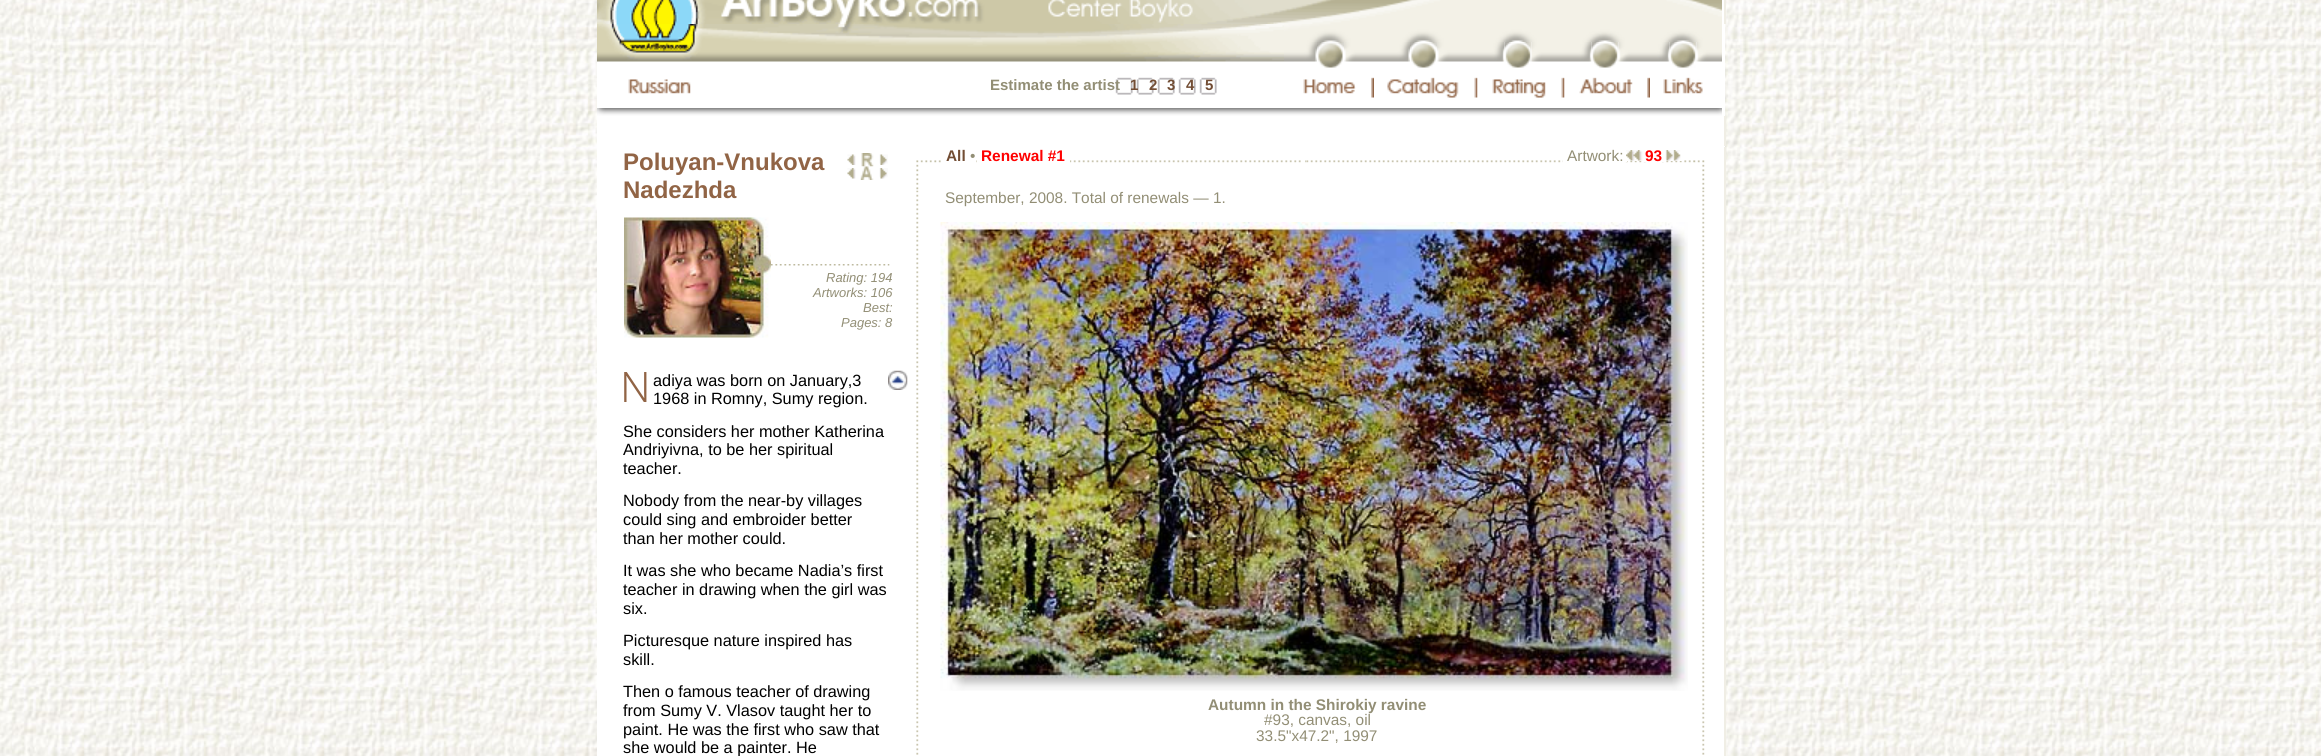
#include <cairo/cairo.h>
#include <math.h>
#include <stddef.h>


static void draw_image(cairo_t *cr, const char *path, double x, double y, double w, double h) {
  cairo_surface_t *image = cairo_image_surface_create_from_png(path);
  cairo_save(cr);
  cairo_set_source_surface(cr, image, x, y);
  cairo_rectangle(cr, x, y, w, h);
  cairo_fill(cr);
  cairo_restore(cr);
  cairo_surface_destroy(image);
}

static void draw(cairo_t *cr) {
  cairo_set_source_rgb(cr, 1, 1, 1);
  cairo_paint(cr);
  draw_image(cr, "images/1.png", 0, 0, 2321, 756);
  cairo_set_source_rgb(cr, 1, 1, 1);
  cairo_rectangle(cr, 597, 0, 1128, 756);
  cairo_fill(cr);
  draw_image(cr, "images/2.png", 597, 0, 1125, 24);
  cairo_set_source_rgb(cr, 240 / 255.0, 238 / 255.0, 229 / 255.0);
  cairo_rectangle(cr, 1724, 0, 2, 24);
  cairo_fill(cr);
  draw_image(cr, "images/3.png", 597, 24, 687, 38);
  draw_image(cr, "images/4.png", 1284, 24, 438, 18);
  draw_image(cr, "images/5.png", 1284, 42, 33, 20);
  draw_image(cr, "images/6.png", 1317, 42, 27, 26);
  draw_image(cr, "images/7.png", 1344, 42, 66, 20);
  draw_image(cr, "images/8.png", 1410, 42, 27, 26);
  draw_image(cr, "images/9.png", 1437, 42, 68, 20);
  draw_image(cr, "images/10.png", 1504, 42, 28, 26);
  draw_image(cr, "images/11.png", 1531, 42, 61, 20);
  draw_image(cr, "images/12.png", 1591, 42, 28, 26);
  draw_image(cr, "images/13.png", 1618, 42, 52, 20);
  draw_image(cr, "images/14.png", 1669, 42, 28, 26);
  draw_image(cr, "images/15.png", 1696, 42, 26, 20);
  draw_image(cr, "images/16.png", 628, 79, 63, 15);
  draw_image(cr, "images/17.png", 1303, 79, 53, 15);
  draw_image(cr, "images/18.png", 1371, 77, 3, 21);
  draw_image(cr, "images/19.png", 1387, 77, 72, 21);
  draw_image(cr, "images/20.png", 1474, 77, 4, 21);
  draw_image(cr, "images/21.png", 1477, 77, 69, 21);
  draw_image(cr, "images/20.png", 1561, 77, 4, 21);
  draw_image(cr, "images/22.png", 1564, 77, 69, 21);
  draw_image(cr, "images/18.png", 1647, 77, 3, 21);
  draw_image(cr, "images/23.png", 1663, 77, 40, 17);
  draw_image(cr, "images/24.png", 1115, 77, 102, 18);
  draw_image(cr, "images/25.png", 597, 108, 1125, 8);
  cairo_rectangle(cr, 1724, 116, 2, 30);
  cairo_fill(cr);
  draw_image(cr, "images/26.png", 847, 154, 9, 11);
  draw_image(cr, "images/27.png", 861, 153, 13, 14);
  draw_image(cr, "images/28.png", 879, 154, 9, 11);
  draw_image(cr, "images/29.png", 847, 168, 9, 11);
  draw_image(cr, "images/30.png", 860, 166, 14, 14);
  draw_image(cr, "images/31.png", 879, 168, 9, 11);
  draw_image(cr, "images/32.png", 624, 217, 147, 121);
  draw_image(cr, "images/33.png", 771, 264, 119, 2);
  draw_image(cr, "images/34.png", 888, 370, 20, 20);
  draw_image(cr, "images/35.png", 976, 160, 325, 3);
  cairo_set_source_rgb(cr, 1, 1, 1);
  cairo_rectangle(cr, 979, 160, 2, 4);
  cairo_fill(cr);
  cairo_rectangle(cr, 981, 160, 84, 3);
  cairo_fill(cr);
  cairo_rectangle(cr, 1065, 160, 5, 4);
  cairo_fill(cr);
  draw_image(cr, "images/36.png", 1305, 160, 2, 3);
  draw_image(cr, "images/37.png", 1307, 160, 387, 3);
  cairo_rectangle(cr, 1563, 160, 61, 3);
  cairo_fill(cr);
  cairo_rectangle(cr, 1625, 152, 2, 10);
  cairo_fill(cr);
  cairo_rectangle(cr, 1627, 160, 15, 1);
  cairo_fill(cr);
  draw_image(cr, "images/38.png", 1626, 150, 17, 11);
  cairo_rectangle(cr, 1643, 152, 3, 10);
  cairo_fill(cr);
  cairo_rectangle(cr, 1648, 160, 14, 3);
  cairo_fill(cr);
  cairo_rectangle(cr, 1662, 152, 2, 10);
  cairo_fill(cr);
  cairo_rectangle(cr, 1666, 160, 16, 1);
  cairo_fill(cr);
  draw_image(cr, "images/39.png", 1665, 150, 16, 11);
  draw_image(cr, "images/40.png", 916, 160, 25, 30);
  draw_image(cr, "images/41.png", 1693, 160, 12, 30);
  draw_image(cr, "images/42.png", 916, 190, 3, 565);
  draw_image(cr, "images/43.png", 940, 222, 748, 469);
  draw_image(cr, "images/42.png", 1702, 190, 3, 565);
  cairo_set_source_rgb(cr, 240 / 255.0, 238 / 255.0, 229 / 255.0);
  cairo_rectangle(cr, 1724, 147, 2, 609);
  cairo_fill(cr);
  cairo_select_font_face(cr, "Liberation Sans", CAIRO_FONT_SLANT_NORMAL, CAIRO_FONT_WEIGHT_BOLD);
  cairo_set_font_size(cr, 15);
  cairo_set_source_rgb(cr, 146 / 255.0, 142 / 255.0, 117 / 255.0);
  cairo_move_to(cr, 990, 90);
  cairo_show_text(cr, "Estimate the artist");
  cairo_set_source_rgb(cr, 114 / 255.0, 77 / 255.0, 52 / 255.0);
  cairo_move_to(cr, 1130, 90);
  cairo_show_text(cr, "1");
  cairo_move_to(cr, 1149, 90);
  cairo_show_text(cr, "2");
  cairo_move_to(cr, 1167, 90);
  cairo_show_text(cr, "3");
  cairo_move_to(cr, 1186, 90);
  cairo_show_text(cr, "4");
  cairo_move_to(cr, 1205, 90);
  cairo_show_text(cr, "5");
  cairo_set_font_size(cr, 24);
  cairo_set_source_rgb(cr, 145 / 255.0, 100 / 255.0, 69 / 255.0);
  cairo_move_to(cr, 623, 170);
  cairo_show_text(cr, "Poluyan-Vnukova");
  cairo_move_to(cr, 623, 198);
  cairo_show_text(cr, "Nadezhda");
  cairo_select_font_face(cr, "Liberation Sans", CAIRO_FONT_SLANT_ITALIC, CAIRO_FONT_WEIGHT_NORMAL);
  cairo_set_font_size(cr, 13);
  cairo_set_source_rgb(cr, 146 / 255.0, 142 / 255.0, 117 / 255.0);
  cairo_move_to(cr, 826, 282);
  cairo_show_text(cr, "Rating: 194");
  cairo_move_to(cr, 813, 297);
  cairo_show_text(cr, "Artworks: 106");
  cairo_move_to(cr, 863, 312);
  cairo_show_text(cr, "Best:");
  cairo_move_to(cr, 841, 327);
  cairo_show_text(cr, "Pages: 8");
  cairo_select_font_face(cr, "Noto Sans Light", CAIRO_FONT_SLANT_NORMAL, CAIRO_FONT_WEIGHT_NORMAL);
  cairo_set_font_size(cr, 42);
  cairo_set_source_rgb(cr, 145 / 255.0, 100 / 255.0, 69 / 255.0);
  cairo_move_to(cr, 620, 402);
  cairo_show_text(cr, "N");
  cairo_select_font_face(cr, "Liberation Sans", CAIRO_FONT_SLANT_NORMAL, CAIRO_FONT_WEIGHT_NORMAL);
  cairo_set_font_size(cr, 16.3);
  cairo_set_source_rgb(cr, 0, 0, 0);
  cairo_move_to(cr, 653, 386);
  cairo_show_text(cr, "adiya was born on January,3");
  cairo_move_to(cr, 653, 404);
  cairo_show_text(cr, "1968 in Romny, Sumy region.");
  cairo_move_to(cr, 623, 437);
  cairo_show_text(cr, "She considers her mother Katherina");
  cairo_move_to(cr, 623, 455);
  cairo_show_text(cr, "Andriyivna, to be her spiritual");
  cairo_move_to(cr, 623, 474);
  cairo_show_text(cr, "teacher.");
  cairo_move_to(cr, 623, 506);
  cairo_show_text(cr, "Nobody from the near-by villages");
  cairo_move_to(cr, 623, 525);
  cairo_show_text(cr, "could sing and embroider better");
  cairo_move_to(cr, 623, 544);
  cairo_show_text(cr, "than her mother could.");
  cairo_move_to(cr, 623, 576);
  cairo_show_text(cr, "It was she who became Nadia’s first");
  cairo_move_to(cr, 623, 595);
  cairo_show_text(cr, "teacher in drawing when the girl was");
  cairo_move_to(cr, 623, 614);
  cairo_show_text(cr, "six.");
  cairo_move_to(cr, 623, 646);
  cairo_show_text(cr, "Picturesque nature inspired has");
  cairo_move_to(cr, 623, 665);
  cairo_show_text(cr, "skill.");
  cairo_move_to(cr, 623, 697);
  cairo_show_text(cr, "Then o famous teacher of drawing");
  cairo_move_to(cr, 623, 716);
  cairo_show_text(cr, "from Sumy V. Vlasov taught her to");
  cairo_move_to(cr, 623, 735);
  cairo_show_text(cr, "paint. He was the first who saw that");
  cairo_move_to(cr, 623, 753);
  cairo_show_text(cr, "she would be a painter. He");
  cairo_select_font_face(cr, "Liberation Sans", CAIRO_FONT_SLANT_NORMAL, CAIRO_FONT_WEIGHT_BOLD);
  cairo_set_font_size(cr, 15.4);
  cairo_set_source_rgb(cr, 114 / 255.0, 77 / 255.0, 52 / 255.0);
  cairo_move_to(cr, 946, 161);
  cairo_show_text(cr, "All");
  cairo_select_font_face(cr, "Liberation Sans", CAIRO_FONT_SLANT_NORMAL, CAIRO_FONT_WEIGHT_NORMAL);
  cairo_set_source_rgb(cr, 146 / 255.0, 142 / 255.0, 117 / 255.0);
  cairo_move_to(cr, 970, 161);
  cairo_show_text(cr, "•");
  cairo_select_font_face(cr, "Liberation Sans", CAIRO_FONT_SLANT_NORMAL, CAIRO_FONT_WEIGHT_BOLD);
  cairo_set_source_rgb(cr, 1, 0, 0);
  cairo_move_to(cr, 981, 161);
  cairo_show_text(cr, "Renewal #1");
  cairo_select_font_face(cr, "Liberation Sans", CAIRO_FONT_SLANT_NORMAL, CAIRO_FONT_WEIGHT_NORMAL);
  cairo_set_source_rgb(cr, 146 / 255.0, 142 / 255.0, 117 / 255.0);
  cairo_move_to(cr, 1567, 161);
  cairo_show_text(cr, "Artwork:");
  cairo_select_font_face(cr, "Liberation Sans", CAIRO_FONT_SLANT_NORMAL, CAIRO_FONT_WEIGHT_BOLD);
  cairo_set_source_rgb(cr, 1, 0, 0);
  cairo_move_to(cr, 1645, 161);
  cairo_show_text(cr, "93");
  cairo_select_font_face(cr, "Liberation Sans", CAIRO_FONT_SLANT_NORMAL, CAIRO_FONT_WEIGHT_NORMAL);
  cairo_set_source_rgb(cr, 146 / 255.0, 142 / 255.0, 117 / 255.0);
  cairo_move_to(cr, 945, 203);
  cairo_show_text(cr, "September, 2008. Total of renewals — 1.");
  cairo_select_font_face(cr, "Liberation Sans", CAIRO_FONT_SLANT_NORMAL, CAIRO_FONT_WEIGHT_BOLD);
  cairo_move_to(cr, 1208, 710);
  cairo_show_text(cr, "Autumn in the Shirokiy ravine");
  cairo_select_font_face(cr, "Liberation Sans", CAIRO_FONT_SLANT_NORMAL, CAIRO_FONT_WEIGHT_NORMAL);
  cairo_move_to(cr, 1264, 725);
  cairo_show_text(cr, "#93, canvas, oil");
  cairo_move_to(cr, 1256, 741);
  cairo_show_text(cr, "33.5\"x47.2\", 1997");
}

int main(void) {
  cairo_surface_t *surface = cairo_image_surface_create(CAIRO_FORMAT_RGB24, 2321, 756);
  cairo_t *cr = cairo_create(surface);
  cairo_font_options_t *options = cairo_font_options_create();
  cairo_font_options_set_hint_metrics(options, CAIRO_HINT_METRICS_OFF);
  cairo_font_options_set_hint_style(options, CAIRO_HINT_STYLE_NONE);
  cairo_set_font_options(cr, options);
  cairo_set_miter_limit(cr, 4);
  draw(cr);
  cairo_surface_write_to_png(surface, "out.png");
  cairo_font_options_destroy(options);
  cairo_destroy(cr);
  cairo_surface_destroy(surface);
  return 0;
}
